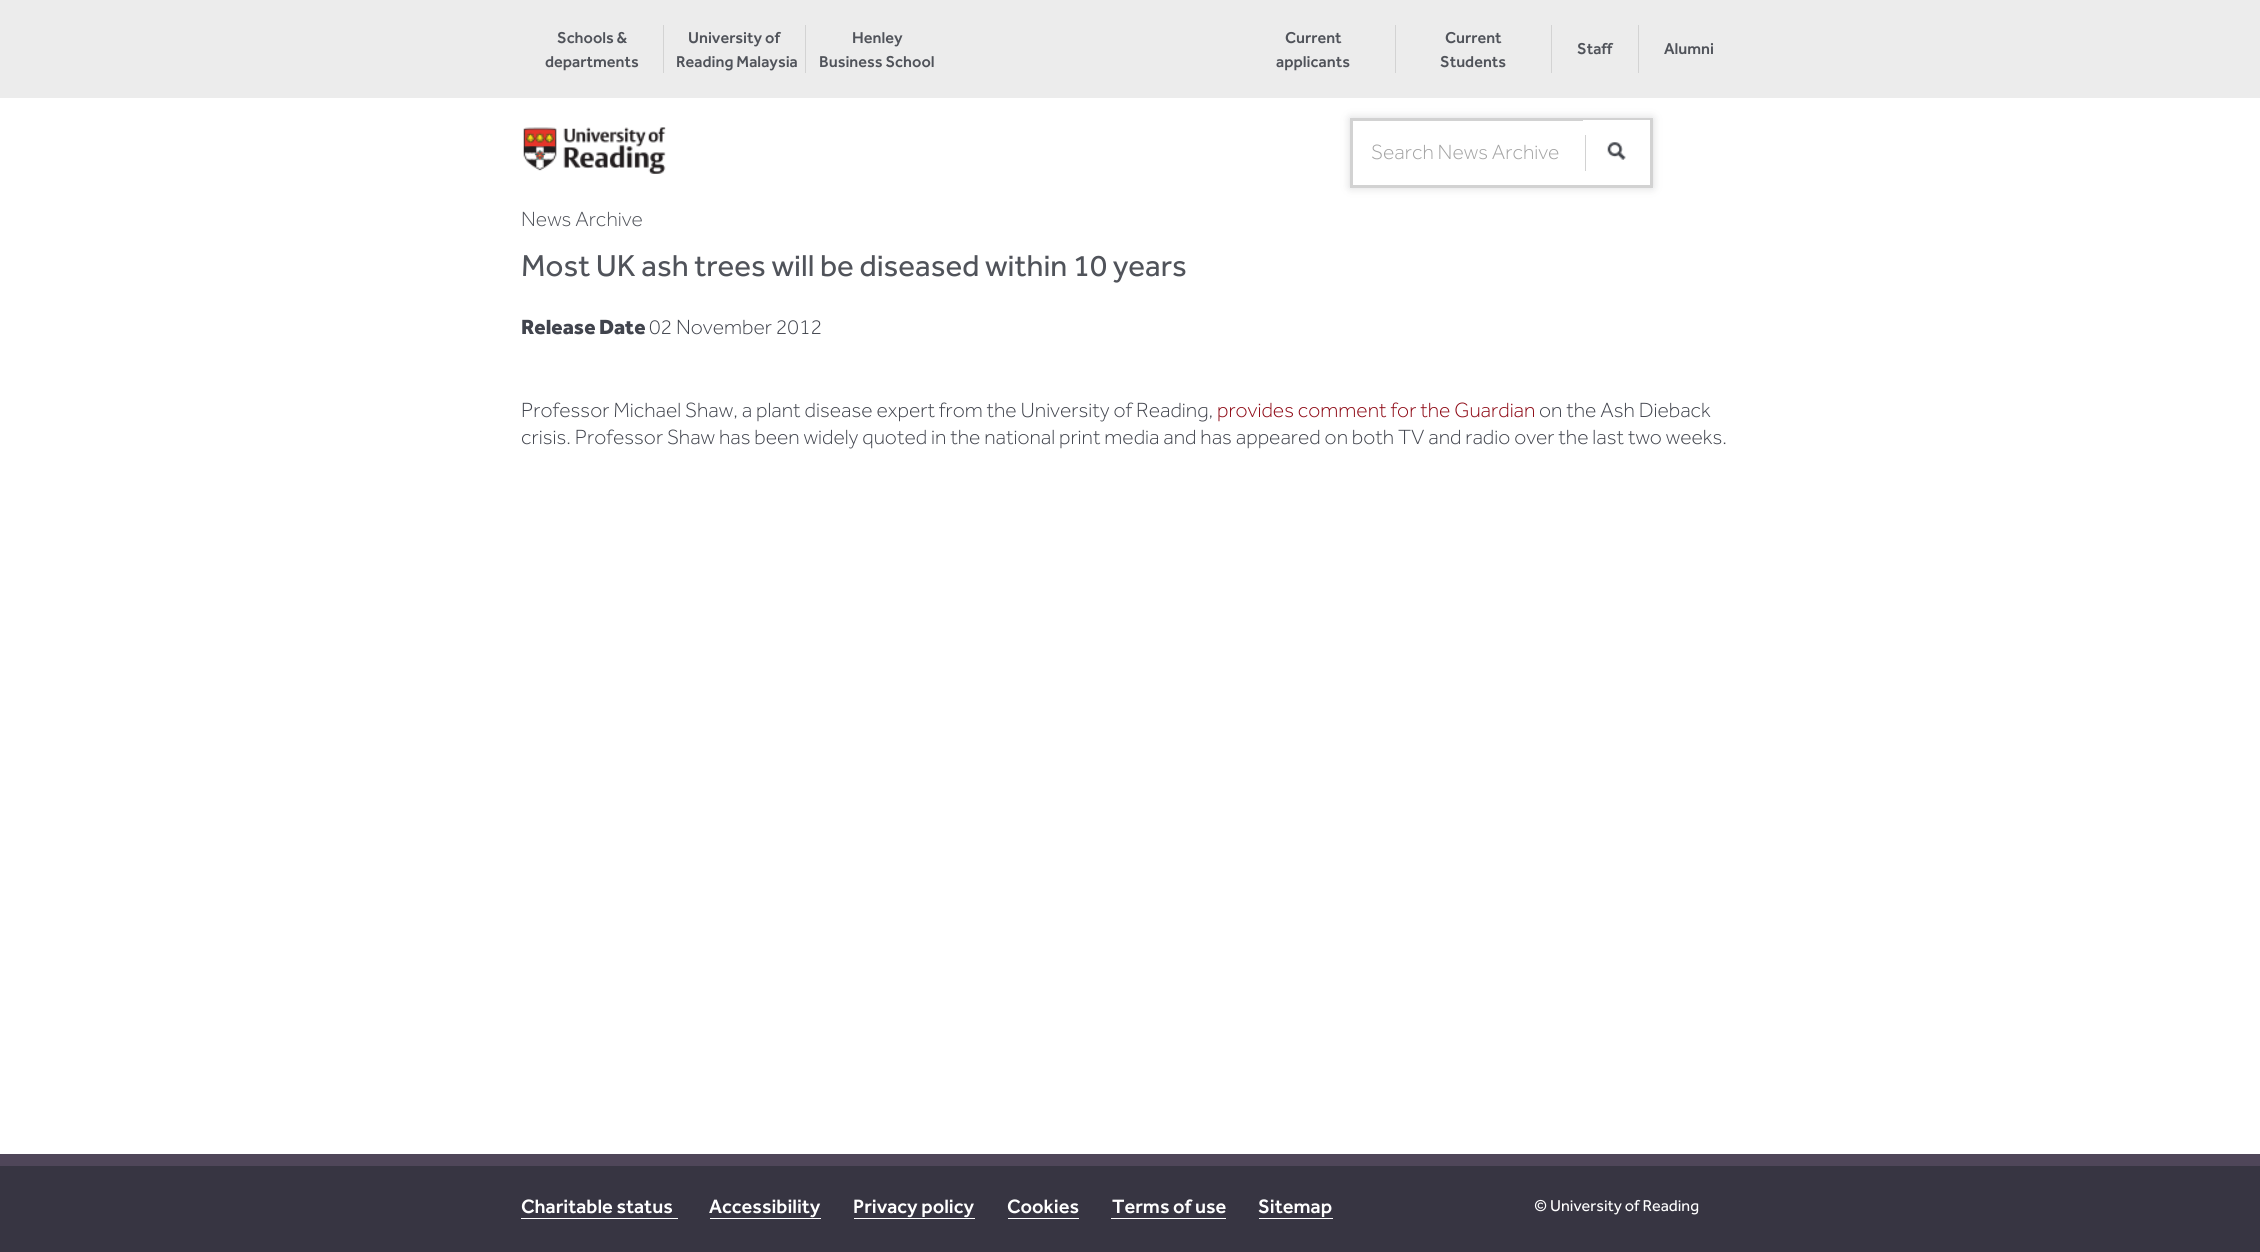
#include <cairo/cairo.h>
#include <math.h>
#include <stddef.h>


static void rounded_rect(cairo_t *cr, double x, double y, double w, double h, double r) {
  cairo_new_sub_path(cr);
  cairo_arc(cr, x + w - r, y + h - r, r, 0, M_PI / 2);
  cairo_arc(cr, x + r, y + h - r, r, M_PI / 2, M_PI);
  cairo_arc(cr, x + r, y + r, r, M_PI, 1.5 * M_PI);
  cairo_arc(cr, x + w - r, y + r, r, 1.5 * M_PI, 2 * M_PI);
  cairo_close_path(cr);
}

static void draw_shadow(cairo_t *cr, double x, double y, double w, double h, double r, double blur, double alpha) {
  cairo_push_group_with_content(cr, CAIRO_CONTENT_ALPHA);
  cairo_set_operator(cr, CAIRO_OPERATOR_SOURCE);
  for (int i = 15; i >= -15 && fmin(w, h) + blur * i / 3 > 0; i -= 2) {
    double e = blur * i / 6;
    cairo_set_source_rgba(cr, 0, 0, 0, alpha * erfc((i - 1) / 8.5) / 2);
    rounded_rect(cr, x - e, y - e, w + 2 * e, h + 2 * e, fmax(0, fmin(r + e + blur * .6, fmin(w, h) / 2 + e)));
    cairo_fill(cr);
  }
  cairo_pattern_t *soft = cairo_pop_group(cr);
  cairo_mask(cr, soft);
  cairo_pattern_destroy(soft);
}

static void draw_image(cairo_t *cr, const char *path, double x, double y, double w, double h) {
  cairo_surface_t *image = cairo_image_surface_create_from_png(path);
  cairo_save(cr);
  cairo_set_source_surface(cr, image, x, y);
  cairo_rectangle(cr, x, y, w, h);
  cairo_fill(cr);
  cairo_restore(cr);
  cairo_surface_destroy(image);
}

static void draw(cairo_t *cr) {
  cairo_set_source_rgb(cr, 1, 1, 1);
  cairo_paint(cr);
  cairo_set_source_rgb(cr, 236 / 255.0, 236 / 255.0, 236 / 255.0);
  cairo_rectangle(cr, 0, 0, 2260, 98);
  cairo_fill(cr);
  cairo_set_source_rgb(cr, 211 / 255.0, 211 / 255.0, 211 / 255.0);
  cairo_rectangle(cr, 663, 25, 1, 48);
  cairo_fill(cr);
  cairo_rectangle(cr, 805, 25, 1, 48);
  cairo_fill(cr);
  cairo_rectangle(cr, 1395, 25, 1, 48);
  cairo_fill(cr);
  cairo_rectangle(cr, 1551, 25, 1, 48);
  cairo_fill(cr);
  cairo_rectangle(cr, 1638, 25, 1, 48);
  cairo_fill(cr);
  draw_image(cr, "images/1.png", 523, 127, 143, 47);
  cairo_set_source_rgb(cr, 65 / 255.0, 68 / 255.0, 76 / 255.0);
  draw_shadow(cr, 1350, 118, 303, 70, 0, 4.5, 0.2);
  cairo_set_source_rgb(cr, 1, 1, 1);
  cairo_rectangle(cr, 1353, 121, 230, 64);
  cairo_fill(cr);
  cairo_rectangle(cr, 1351.5, 119.5, 300, 67);
  cairo_set_source_rgb(cr, 210 / 255.0, 210 / 255.0, 210 / 255.0);
  cairo_set_line_width(cr, 3);
  cairo_stroke(cr);
  cairo_set_source_rgb(cr, 1, 1, 1);
  cairo_rectangle(cr, 1583, 120, 67, 65);
  cairo_fill(cr);
  cairo_set_source_rgb(cr, 210 / 255.0, 210 / 255.0, 210 / 255.0);
  cairo_rectangle(cr, 1585, 135, 1, 36);
  cairo_fill(cr);
  draw_image(cr, "images/2.png", 1607, 142, 19, 18);
  cairo_set_source_rgb(cr, 79 / 255.0, 70 / 255.0, 89 / 255.0);
  cairo_rectangle(cr, 0, 1154, 2260, 12);
  cairo_fill(cr);
  cairo_set_source_rgb(cr, 55 / 255.0, 53 / 255.0, 66 / 255.0);
  cairo_rectangle(cr, 0, 1166, 2260, 86);
  cairo_fill(cr);
  cairo_set_source_rgb(cr, 1, 1, 1);
  cairo_rectangle(cr, 521, 1218, 157, 1);
  cairo_fill(cr);
  cairo_rectangle(cr, 710, 1218, 111, 1);
  cairo_fill(cr);
  cairo_rectangle(cr, 854, 1218, 121, 1);
  cairo_fill(cr);
  cairo_rectangle(cr, 1008, 1218, 71, 1);
  cairo_fill(cr);
  cairo_rectangle(cr, 1111, 1218, 115, 1);
  cairo_fill(cr);
  cairo_rectangle(cr, 1259, 1218, 74, 1);
  cairo_fill(cr);
  cairo_select_font_face(cr, "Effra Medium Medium", CAIRO_FONT_SLANT_NORMAL, CAIRO_FONT_WEIGHT_NORMAL);
  cairo_set_font_size(cr, 16.25);
  cairo_set_source_rgb(cr, 80 / 255.0, 83 / 255.0, 90 / 255.0);
  cairo_move_to(cr, 557, 43);
  cairo_show_text(cr, "Schools &");
  cairo_move_to(cr, 545, 67);
  cairo_show_text(cr, "departments");
  cairo_move_to(cr, 688, 43);
  cairo_show_text(cr, "University of");
  cairo_move_to(cr, 676, 67);
  cairo_show_text(cr, "Reading Malaysia");
  cairo_move_to(cr, 852, 43);
  cairo_show_text(cr, "Henley");
  cairo_move_to(cr, 819, 67);
  cairo_show_text(cr, "Business School");
  cairo_move_to(cr, 1285, 43);
  cairo_show_text(cr, "Current");
  cairo_move_to(cr, 1276, 67);
  cairo_show_text(cr, "applicants");
  cairo_move_to(cr, 1445, 43);
  cairo_show_text(cr, "Current");
  cairo_move_to(cr, 1440, 67);
  cairo_show_text(cr, "Students");
  cairo_move_to(cr, 1577, 54);
  cairo_show_text(cr, "Staff");
  cairo_move_to(cr, 1664, 54);
  cairo_show_text(cr, "Alumni");
  cairo_select_font_face(cr, "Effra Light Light", CAIRO_FONT_SLANT_NORMAL, CAIRO_FONT_WEIGHT_NORMAL);
  cairo_set_font_size(cr, 21.25);
  cairo_set_source_rgb(cr, 163 / 255.0, 163 / 255.0, 163 / 255.0);
  cairo_move_to(cr, 1371, 159);
  cairo_show_text(cr, "Search News Archive");
  cairo_set_source_rgb(cr, 80 / 255.0, 83 / 255.0, 90 / 255.0);
  cairo_move_to(cr, 521, 226);
  cairo_show_text(cr, "News Archive");
  cairo_select_font_face(cr, "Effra", CAIRO_FONT_SLANT_NORMAL, CAIRO_FONT_WEIGHT_NORMAL);
  cairo_set_font_size(cr, 31.25);
  cairo_move_to(cr, 521, 276);
  cairo_show_text(cr, "Most UK ash trees will be diseased within 10 years");
  cairo_select_font_face(cr, "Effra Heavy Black", CAIRO_FONT_SLANT_NORMAL, CAIRO_FONT_WEIGHT_NORMAL);
  cairo_set_font_size(cr, 21.25);
  cairo_set_source_rgb(cr, 65 / 255.0, 68 / 255.0, 77 / 255.0);
  cairo_move_to(cr, 521, 334);
  cairo_show_text(cr, "Release Date");
  cairo_select_font_face(cr, "Effra Light Light", CAIRO_FONT_SLANT_NORMAL, CAIRO_FONT_WEIGHT_NORMAL);
  cairo_move_to(cr, 649, 334);
  cairo_show_text(cr, "02 November 2012");
  cairo_move_to(cr, 521, 417);
  cairo_show_text(cr, "Professor Michael Shaw, a plant disease expert from the University of Reading,");
  cairo_set_source_rgb(cr, 142 / 255.0, 9 / 255.0, 21 / 255.0);
  cairo_move_to(cr, 1217, 417);
  cairo_show_text(cr, "provides comment for the Guardian");
  cairo_set_source_rgb(cr, 65 / 255.0, 68 / 255.0, 77 / 255.0);
  cairo_move_to(cr, 1539, 417);
  cairo_show_text(cr, "on the Ash Dieback");
  cairo_move_to(cr, 521, 444);
  cairo_show_text(cr, "crisis. Professor Shaw has been widely quoted in the national print media and has appeared on both TV and radio over the last two weeks.");
  cairo_select_font_face(cr, "Effra Medium Medium", CAIRO_FONT_SLANT_NORMAL, CAIRO_FONT_WEIGHT_NORMAL);
  cairo_set_font_size(cr, 20);
  cairo_set_source_rgb(cr, 1, 1, 1);
  cairo_move_to(cr, 521, 1213);
  cairo_show_text(cr, "Charitable status");
  cairo_move_to(cr, 709, 1213);
  cairo_show_text(cr, "Accessibility");
  cairo_move_to(cr, 853, 1213);
  cairo_show_text(cr, "Privacy policy");
  cairo_move_to(cr, 1007, 1213);
  cairo_show_text(cr, "Cookies");
  cairo_move_to(cr, 1112, 1213);
  cairo_show_text(cr, "Terms of use");
  cairo_move_to(cr, 1258, 1213);
  cairo_show_text(cr, "Sitemap");
  cairo_select_font_face(cr, "Effra", CAIRO_FONT_SLANT_NORMAL, CAIRO_FONT_WEIGHT_NORMAL);
  cairo_set_font_size(cr, 16.25);
  cairo_move_to(cr, 1534, 1211);
  cairo_show_text(cr, "© University of Reading");
}

int main(void) {
  cairo_surface_t *surface = cairo_image_surface_create(CAIRO_FORMAT_RGB24, 2260, 1252);
  cairo_t *cr = cairo_create(surface);
  cairo_font_options_t *options = cairo_font_options_create();
  cairo_font_options_set_hint_metrics(options, CAIRO_HINT_METRICS_OFF);
  cairo_font_options_set_hint_style(options, CAIRO_HINT_STYLE_NONE);
  cairo_set_font_options(cr, options);
  cairo_set_miter_limit(cr, 4);
  draw(cr);
  cairo_surface_write_to_png(surface, "out.png");
  cairo_font_options_destroy(options);
  cairo_destroy(cr);
  cairo_surface_destroy(surface);
  return 0;
}
